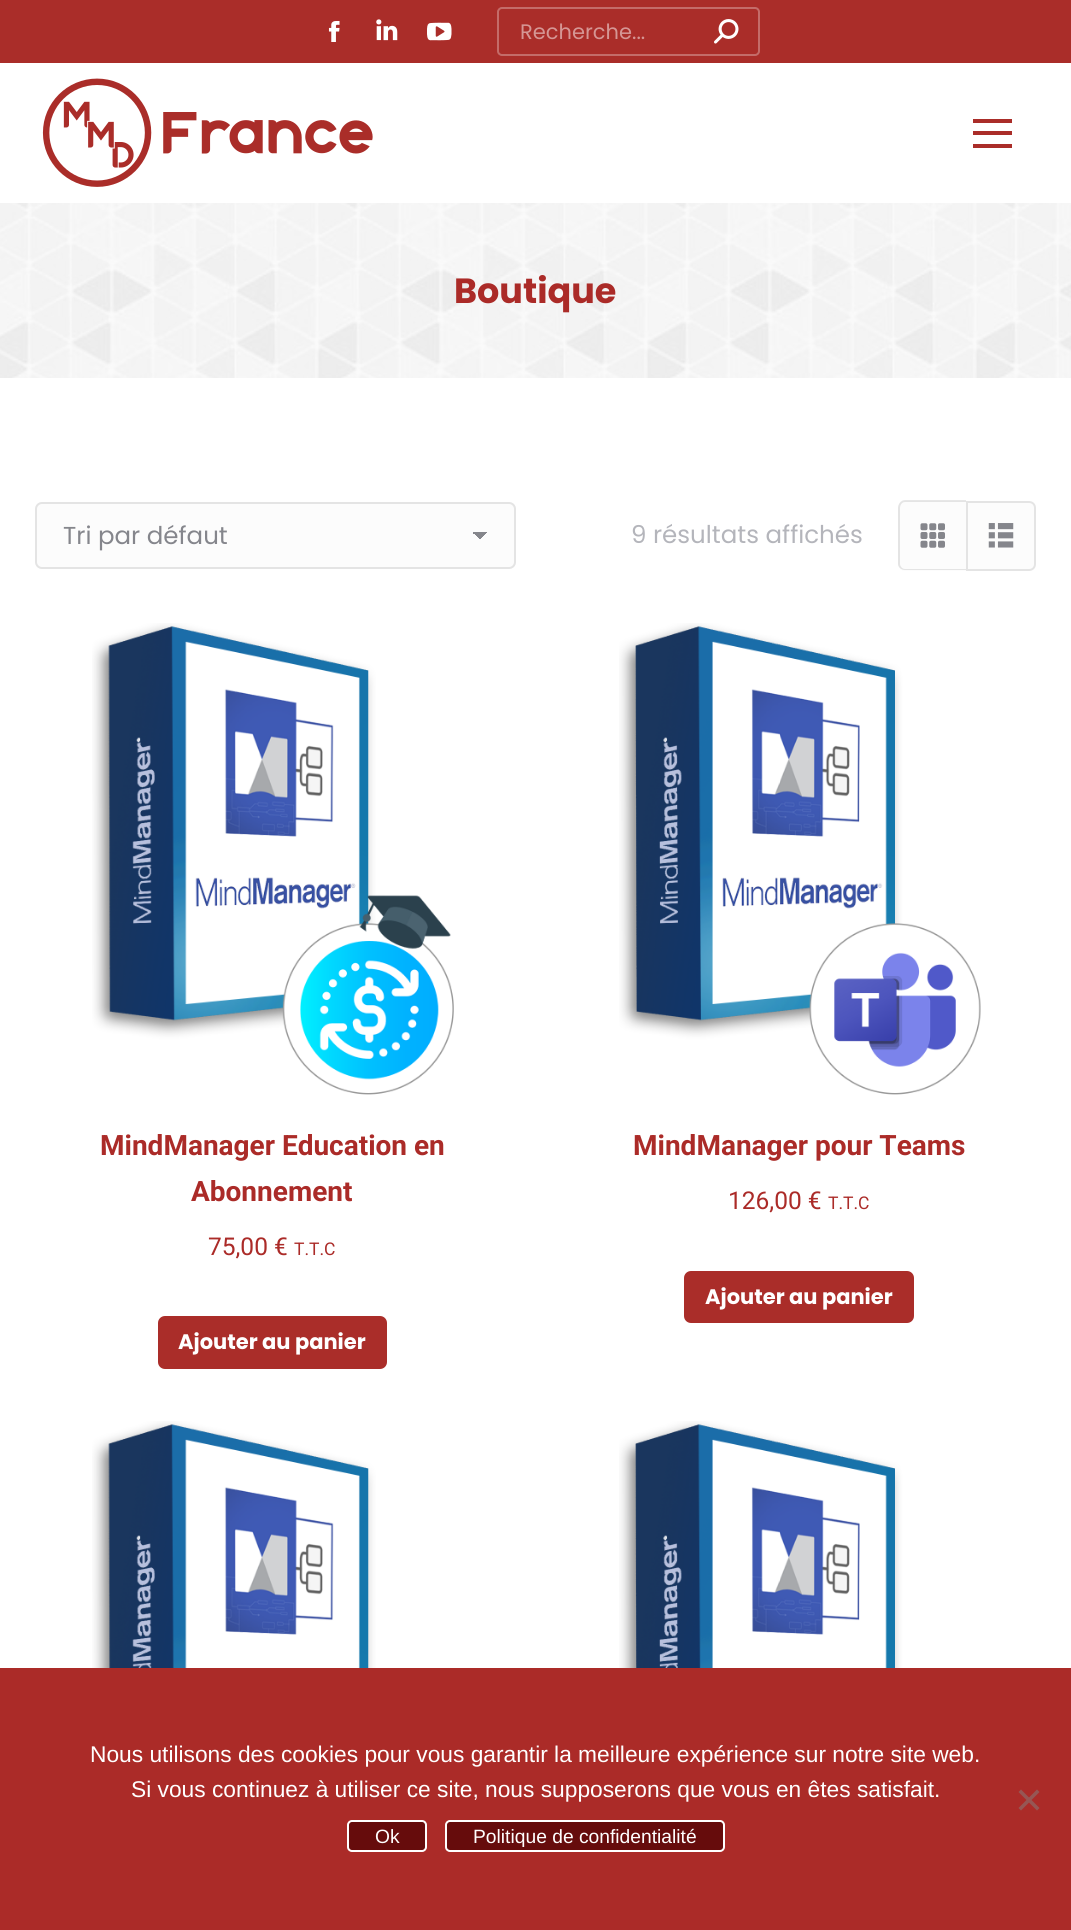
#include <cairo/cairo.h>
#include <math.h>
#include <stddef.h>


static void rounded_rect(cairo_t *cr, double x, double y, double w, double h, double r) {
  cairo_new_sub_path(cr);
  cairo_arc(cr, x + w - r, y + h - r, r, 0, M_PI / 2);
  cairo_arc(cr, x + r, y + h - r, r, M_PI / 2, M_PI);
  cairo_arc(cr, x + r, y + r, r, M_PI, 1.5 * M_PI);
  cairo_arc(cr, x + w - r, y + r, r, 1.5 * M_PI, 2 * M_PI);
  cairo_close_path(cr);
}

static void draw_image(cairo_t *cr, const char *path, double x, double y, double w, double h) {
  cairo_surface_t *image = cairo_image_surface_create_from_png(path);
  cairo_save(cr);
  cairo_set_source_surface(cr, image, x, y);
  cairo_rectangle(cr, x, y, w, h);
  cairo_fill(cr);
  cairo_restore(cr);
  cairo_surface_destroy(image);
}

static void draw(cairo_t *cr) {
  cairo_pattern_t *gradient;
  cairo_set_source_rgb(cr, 1, 1, 1);
  cairo_paint(cr);
  cairo_set_source_rgb(cr, 170 / 255.0, 45 / 255.0, 41 / 255.0);
  cairo_rectangle(cr, 0, 0, 1071, 63);
  cairo_fill(cr);
  draw_image(cr, "images/1.png", 328, 21, 12, 21);
  draw_image(cr, "images/2.png", 376, 19, 22, 22);
  draw_image(cr, "images/3.png", 427, 22, 25, 19);
  rounded_rect(cr, 498, 8, 261, 47, 4);
  cairo_set_source_rgb(cr, 196 / 255.0, 108 / 255.0, 105 / 255.0);
  cairo_stroke(cr);
  draw_image(cr, "images/4.png", 714, 19, 25, 25);
  draw_image(cr, "images/5.png", 42, 78, 331, 109);
  cairo_set_source_rgb(cr, 170 / 255.0, 45 / 255.0, 41 / 255.0);
  cairo_rectangle(cr, 973, 119, 39, 4);
  cairo_fill(cr);
  cairo_rectangle(cr, 973, 131, 39, 4);
  cairo_fill(cr);
  cairo_rectangle(cr, 973, 144, 39, 4);
  cairo_fill(cr);
  draw_image(cr, "images/6.png", 0, 203, 1071, 175);
  cairo_set_source_rgb(cr, 252 / 255.0, 252 / 255.0, 252 / 255.0);
  rounded_rect(cr, 35, 502, 481, 67, 7);
  cairo_fill(cr);
  gradient = cairo_pattern_create_linear(480, 531, 488, 540);
  cairo_pattern_add_color_stop_rgba(gradient, 0.5, 133 / 255.0, 134 / 255.0, 140 / 255.0, 1);
  cairo_pattern_add_color_stop_rgba(gradient, 0.5, 252 / 255.0, 252 / 255.0, 252 / 255.0, 1);
  cairo_set_source(cr, gradient);
  cairo_pattern_destroy(gradient);
  cairo_rectangle(cr, 480, 532, 7, 9);
  cairo_fill(cr);
  gradient = cairo_pattern_create_linear(471, 540, 480, 531);
  cairo_pattern_add_color_stop_rgba(gradient, 0.5, 252 / 255.0, 252 / 255.0, 252 / 255.0, 1);
  cairo_pattern_add_color_stop_rgba(gradient, 0.5, 133 / 255.0, 134 / 255.0, 140 / 255.0, 1);
  cairo_set_source(cr, gradient);
  cairo_pattern_destroy(gradient);
  cairo_rectangle(cr, 473, 532, 7, 7);
  cairo_fill(cr);
  rounded_rect(cr, 36, 503, 479, 65, 6);
  cairo_set_source_rgb(cr, 228 / 255.0, 228 / 255.0, 228 / 255.0);
  cairo_stroke(cr);
  cairo_set_source_rgb(cr, 252 / 255.0, 252 / 255.0, 252 / 255.0);
  cairo_new_path(cr);
  cairo_move_to(cr, 905, 501);
  cairo_line_to(cr, 966, 501);
  cairo_line_to(cr, 966, 571);
  cairo_line_to(cr, 905, 571);
  cairo_curve_to(cr, 901, 571, 898, 568, 898, 564);
  cairo_line_to(cr, 898, 508);
  cairo_curve_to(cr, 898, 504, 901, 501, 905, 501);
  cairo_close_path(cr);
  cairo_fill(cr);
  cairo_set_source_rgba(cr, 51 / 255.0, 51 / 255.0, 51 / 255.0, 0.12);
  cairo_set_fill_rule(cr, CAIRO_FILL_RULE_EVEN_ODD);
  cairo_new_path(cr);
  cairo_move_to(cr, 905, 500);
  cairo_line_to(cr, 966, 500);
  cairo_line_to(cr, 966, 570);
  cairo_line_to(cr, 905, 570);
  cairo_curve_to(cr, 901, 570, 898, 567, 898, 564);
  cairo_line_to(cr, 898, 508);
  cairo_curve_to(cr, 898, 504, 901, 500, 905, 500);
  cairo_close_path(cr);
  cairo_move_to(cr, 905, 502);
  cairo_line_to(cr, 966, 502);
  cairo_line_to(cr, 966, 569);
  cairo_line_to(cr, 905, 569);
  cairo_curve_to(cr, 902, 569, 900, 566, 900, 564);
  cairo_line_to(cr, 900, 508);
  cairo_curve_to(cr, 900, 505, 902, 502, 905, 502);
  cairo_close_path(cr);
  cairo_fill(cr);
  draw_image(cr, "images/7.png", 920, 523, 25, 25);
  cairo_set_source_rgb(cr, 252 / 255.0, 252 / 255.0, 252 / 255.0);
  cairo_new_path(cr);
  cairo_move_to(cr, 967, 502);
  cairo_line_to(cr, 1029, 502);
  cairo_curve_to(cr, 1032.5, 502, 1035, 504.5, 1035, 508);
  cairo_line_to(cr, 1035, 564);
  cairo_curve_to(cr, 1035, 567.5, 1032.5, 570, 1029, 570);
  cairo_line_to(cr, 967, 570);
  cairo_close_path(cr);
  cairo_fill_preserve(cr);
  cairo_set_source_rgb(cr, 228 / 255.0, 228 / 255.0, 228 / 255.0);
  cairo_stroke(cr);
  draw_image(cr, "images/8.png", 988, 523, 26, 25);
  draw_image(cr, "images/9.png", 92, 623, 362, 472);
  cairo_set_source_rgb(cr, 170 / 255.0, 45 / 255.0, 41 / 255.0);
  rounded_rect(cr, 158, 1316, 229, 53, 7);
  cairo_fill(cr);
  draw_image(cr, "images/10.png", 619, 623, 362, 472);
  rounded_rect(cr, 684, 1271, 230, 52, 7);
  cairo_fill(cr);
  draw_image(cr, "images/11.png", 92, 1421, 362, 247);
  draw_image(cr, "images/12.png", 619, 1421, 362, 247);
  cairo_set_source_rgb(cr, 171 / 255.0, 43 / 255.0, 40 / 255.0);
  cairo_rectangle(cr, 0, 1668, 1071, 262);
  cairo_fill(cr);
  cairo_set_source_rgb(cr, 150 / 255.0, 86 / 255.0, 84 / 255.0);
  cairo_set_fill_rule(cr, CAIRO_FILL_RULE_WINDING);
  cairo_new_path(cr);
  cairo_move_to(cr, 1037, 1789.5);
  cairo_line_to(cr, 1039.5, 1792);
  cairo_line_to(cr, 1021, 1810.5);
  cairo_line_to(cr, 1018.5, 1808);
  cairo_close_path(cr);
  cairo_fill(cr);
  cairo_new_path(cr);
  cairo_move_to(cr, 1018.5, 1792);
  cairo_line_to(cr, 1021, 1789.5);
  cairo_line_to(cr, 1039.5, 1808);
  cairo_line_to(cr, 1037, 1810.5);
  cairo_close_path(cr);
  cairo_fill(cr);
  cairo_set_source_rgb(cr, 102 / 255.0, 12 / 255.0, 12 / 255.0);
  rounded_rect(cr, 348, 1821, 78, 30, 4);
  cairo_fill_preserve(cr);
  cairo_set_source_rgb(cr, 1, 1, 1);
  cairo_stroke(cr);
  cairo_set_source_rgb(cr, 102 / 255.0, 12 / 255.0, 12 / 255.0);
  rounded_rect(cr, 446, 1821, 278, 30, 4);
  cairo_fill_preserve(cr);
  cairo_set_source_rgb(cr, 1, 1, 1);
  cairo_stroke(cr);
  cairo_select_font_face(cr, "Poppins", CAIRO_FONT_SLANT_NORMAL, CAIRO_FONT_WEIGHT_NORMAL);
  cairo_set_font_size(cr, 21);
  cairo_set_source_rgb(cr, 213 / 255.0, 150 / 255.0, 148 / 255.0);
  cairo_move_to(cr, 520, 39);
  cairo_show_text(cr, "Recherche...");
  cairo_select_font_face(cr, "Poppins", CAIRO_FONT_SLANT_NORMAL, CAIRO_FONT_WEIGHT_BOLD);
  cairo_set_font_size(cr, 35);
  cairo_set_source_rgb(cr, 171 / 255.0, 43 / 255.0, 40 / 255.0);
  cairo_move_to(cr, 454, 303);
  cairo_show_text(cr, "Boutique");
  cairo_select_font_face(cr, "Poppins", CAIRO_FONT_SLANT_NORMAL, CAIRO_FONT_WEIGHT_NORMAL);
  cairo_set_font_size(cr, 24.5);
  cairo_set_source_rgb(cr, 133 / 255.0, 134 / 255.0, 140 / 255.0);
  cairo_move_to(cr, 63, 544);
  cairo_show_text(cr, "Tri par défaut");
  cairo_set_source_rgb(cr, 180 / 255.0, 181 / 255.0, 187 / 255.0);
  cairo_move_to(cr, 631, 543);
  cairo_show_text(cr, "9 résultats affichés");
  cairo_select_font_face(cr, "Roboto", CAIRO_FONT_SLANT_NORMAL, CAIRO_FONT_WEIGHT_BOLD);
  cairo_set_font_size(cr, 28);
  cairo_set_source_rgb(cr, 171 / 255.0, 43 / 255.0, 40 / 255.0);
  cairo_move_to(cr, 100, 1155);
  cairo_show_text(cr, "MindManager Education en");
  cairo_move_to(cr, 191, 1201);
  cairo_show_text(cr, "Abonnement");
  cairo_select_font_face(cr, "Roboto", CAIRO_FONT_SLANT_NORMAL, CAIRO_FONT_WEIGHT_NORMAL);
  cairo_set_font_size(cr, 24.5);
  cairo_move_to(cr, 208, 1255);
  cairo_show_text(cr, "75,00 €");
  cairo_set_font_size(cr, 17.5);
  cairo_move_to(cr, 294, 1255);
  cairo_show_text(cr, "T.T.C");
  cairo_select_font_face(cr, "Poppins", CAIRO_FONT_SLANT_NORMAL, CAIRO_FONT_WEIGHT_BOLD);
  cairo_set_font_size(cr, 21);
  cairo_set_source_rgb(cr, 1, 1, 1);
  cairo_move_to(cr, 178, 1349);
  cairo_show_text(cr, "Ajouter au panier");
  cairo_select_font_face(cr, "Roboto", CAIRO_FONT_SLANT_NORMAL, CAIRO_FONT_WEIGHT_BOLD);
  cairo_set_font_size(cr, 28);
  cairo_set_source_rgb(cr, 171 / 255.0, 43 / 255.0, 40 / 255.0);
  cairo_move_to(cr, 633, 1155);
  cairo_show_text(cr, "MindManager pour Teams");
  cairo_select_font_face(cr, "Roboto", CAIRO_FONT_SLANT_NORMAL, CAIRO_FONT_WEIGHT_NORMAL);
  cairo_set_font_size(cr, 24.5);
  cairo_move_to(cr, 728, 1209);
  cairo_show_text(cr, "126,00 €");
  cairo_set_font_size(cr, 17.5);
  cairo_move_to(cr, 828, 1209);
  cairo_show_text(cr, "T.T.C");
  cairo_select_font_face(cr, "Poppins", CAIRO_FONT_SLANT_NORMAL, CAIRO_FONT_WEIGHT_BOLD);
  cairo_set_font_size(cr, 21);
  cairo_set_source_rgb(cr, 1, 1, 1);
  cairo_move_to(cr, 705, 1304);
  cairo_show_text(cr, "Ajouter au panier");
  cairo_select_font_face(cr, "Liberation Sans", CAIRO_FONT_SLANT_NORMAL, CAIRO_FONT_WEIGHT_NORMAL);
  cairo_set_font_size(cr, 22.75);
  cairo_move_to(cr, 90, 1762);
  cairo_show_text(cr, "Nous utilisons des cookies pour vous garantir la meilleure expérience sur notre site web.");
  cairo_move_to(cr, 131, 1797);
  cairo_show_text(cr, "Si vous continuez à utiliser ce site, nous supposerons que vous en êtes satisfait.");
  cairo_set_font_size(cr, 19.25);
  cairo_move_to(cr, 375, 1843);
  cairo_show_text(cr, "Ok");
  cairo_move_to(cr, 473, 1843);
  cairo_show_text(cr, "Politique de confidentialité");
}

int main(void) {
  cairo_surface_t *surface = cairo_image_surface_create(CAIRO_FORMAT_RGB24, 1071, 1930);
  cairo_t *cr = cairo_create(surface);
  cairo_font_options_t *options = cairo_font_options_create();
  cairo_font_options_set_hint_metrics(options, CAIRO_HINT_METRICS_OFF);
  cairo_font_options_set_hint_style(options, CAIRO_HINT_STYLE_NONE);
  cairo_set_font_options(cr, options);
  cairo_set_miter_limit(cr, 4);
  draw(cr);
  cairo_surface_write_to_png(surface, "out.png");
  cairo_font_options_destroy(options);
  cairo_destroy(cr);
  cairo_surface_destroy(surface);
  return 0;
}
